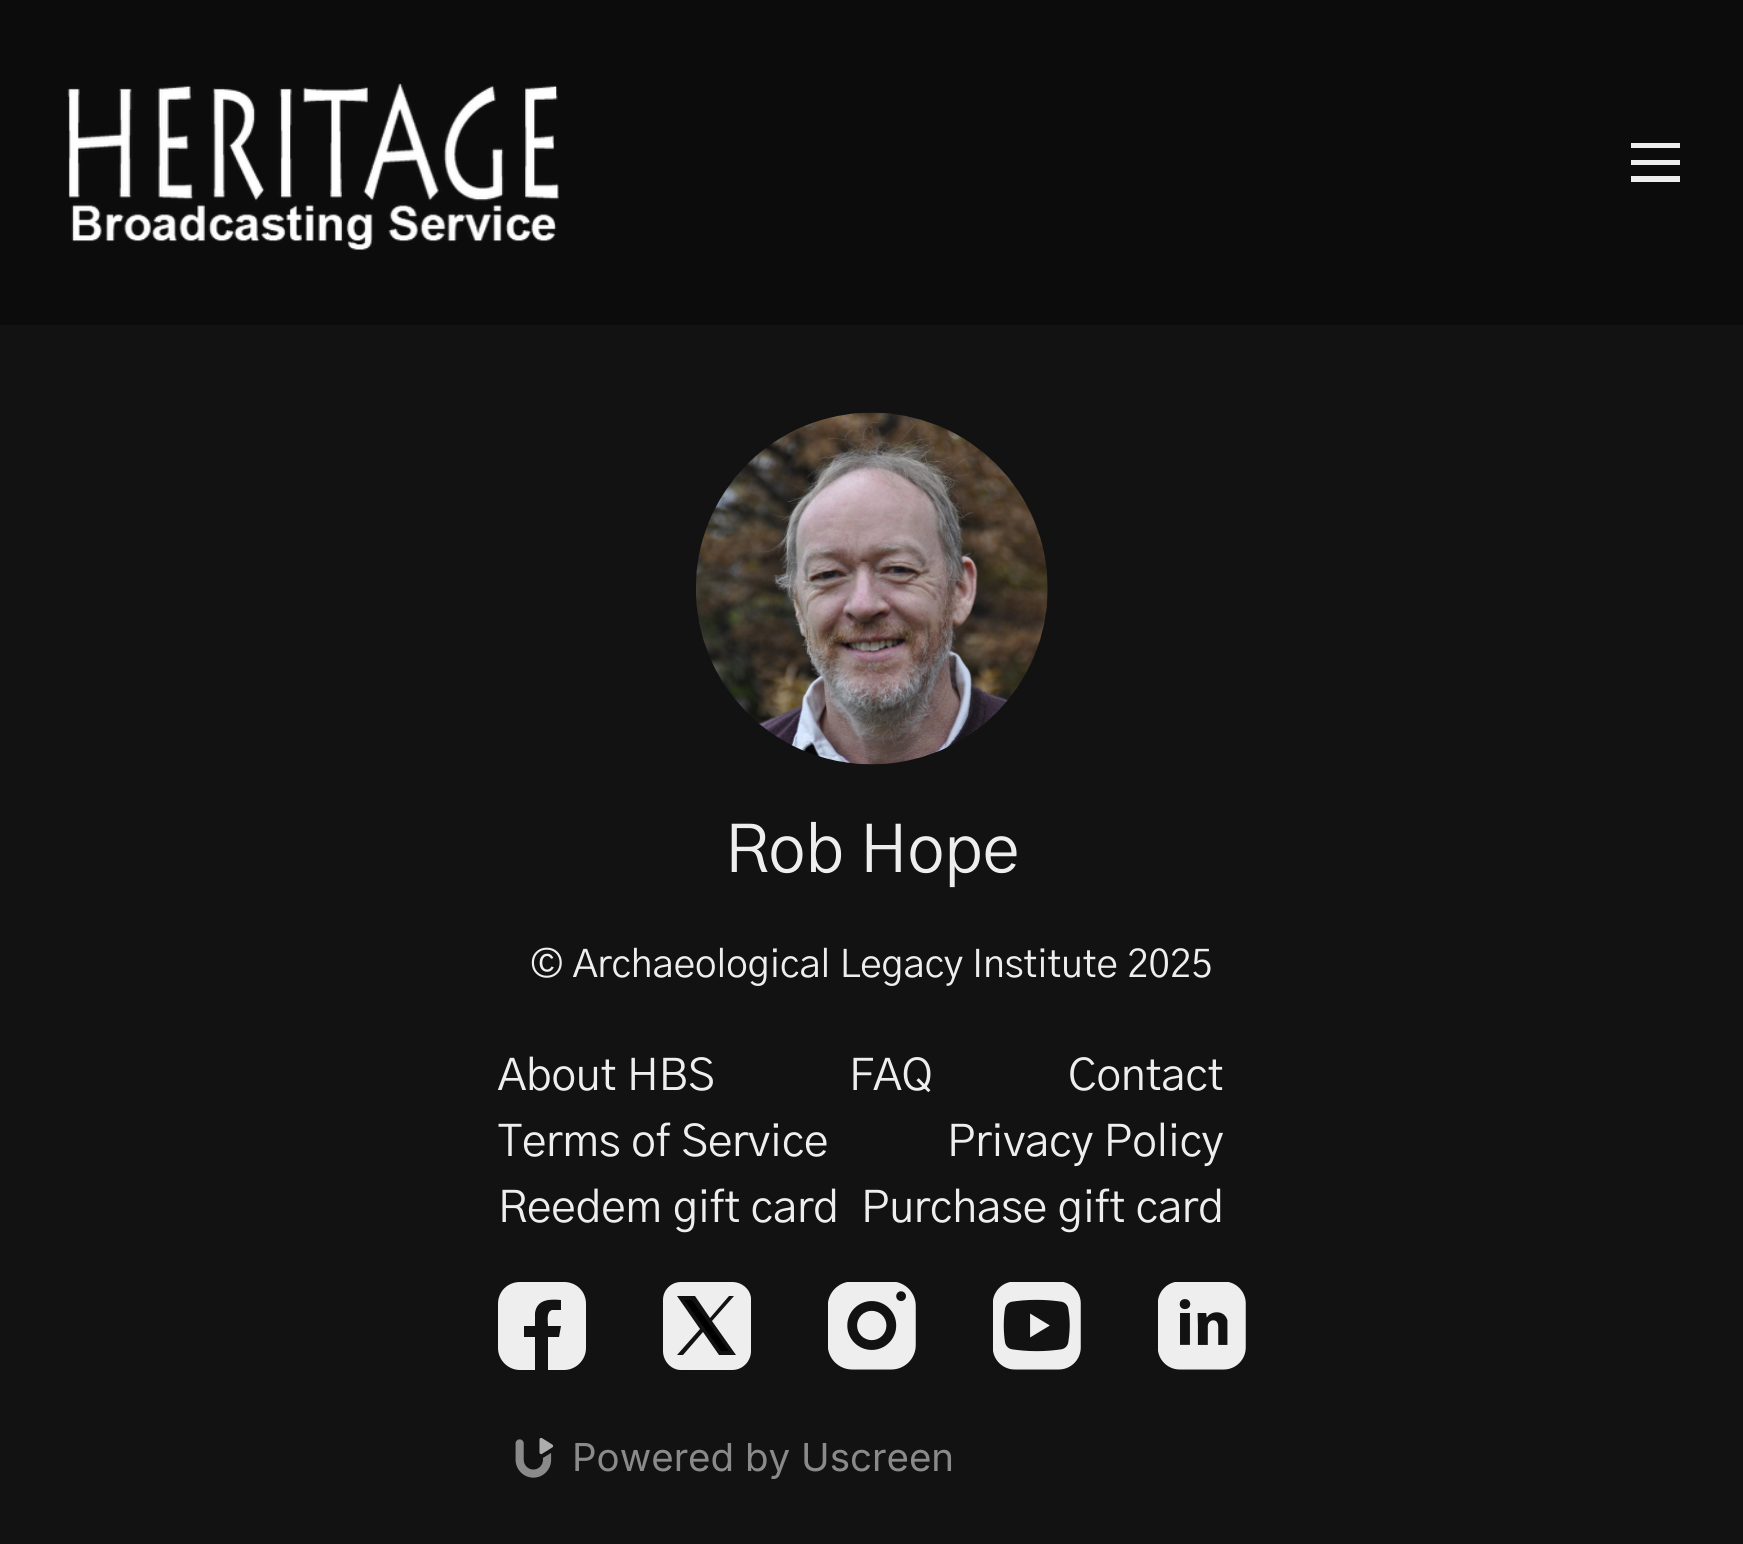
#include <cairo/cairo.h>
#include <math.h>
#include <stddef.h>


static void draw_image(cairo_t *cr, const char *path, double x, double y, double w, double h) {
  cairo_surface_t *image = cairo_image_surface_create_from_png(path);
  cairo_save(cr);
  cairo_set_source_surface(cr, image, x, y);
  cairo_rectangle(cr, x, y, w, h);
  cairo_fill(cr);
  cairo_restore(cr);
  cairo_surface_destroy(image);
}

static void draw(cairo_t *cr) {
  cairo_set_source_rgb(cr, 18 / 255.0, 18 / 255.0, 18 / 255.0);
  cairo_paint(cr);
  cairo_set_source_rgb(cr, 12 / 255.0, 12 / 255.0, 12 / 255.0);
  cairo_rectangle(cr, 0, 0, 1743, 325);
  cairo_fill(cr);
  draw_image(cr, "images/1.png", 67, 83, 492, 168);
  cairo_set_source_rgb(cr, 238 / 255.0, 238 / 255.0, 238 / 255.0);
  cairo_new_path(cr);
  cairo_move_to(cr, 1680, 148);
  cairo_line_to(cr, 1631, 148);
  cairo_line_to(cr, 1631, 143);
  cairo_line_to(cr, 1680, 143);
  cairo_close_path(cr);
  cairo_move_to(cr, 1680, 165);
  cairo_line_to(cr, 1631, 165);
  cairo_line_to(cr, 1631, 160);
  cairo_line_to(cr, 1680, 160);
  cairo_close_path(cr);
  cairo_move_to(cr, 1631, 182);
  cairo_line_to(cr, 1680, 182);
  cairo_line_to(cr, 1680, 176);
  cairo_line_to(cr, 1631, 176);
  cairo_close_path(cr);
  cairo_fill(cr);
  draw_image(cr, "images/2.png", 696, 412, 352, 353);
  cairo_new_path(cr);
  cairo_move_to(cr, 520, 1282);
  cairo_curve_to(cr, 508, 1282, 498, 1291, 498, 1304);
  cairo_line_to(cr, 498, 1348);
  cairo_curve_to(cr, 498, 1360, 508, 1370, 520, 1370);
  cairo_line_to(cr, 535, 1370);
  cairo_line_to(cr, 535, 1337);
  cairo_line_to(cr, 524, 1337);
  cairo_line_to(cr, 524, 1326);
  cairo_line_to(cr, 535, 1326);
  cairo_line_to(cr, 535, 1313);
  cairo_curve_to(cr, 537, 1299, 550, 1299, 561, 1300);
  cairo_line_to(cr, 561, 1310);
  cairo_line_to(cr, 552, 1310);
  cairo_curve_to(cr, 546, 1312, 548, 1321, 548, 1326);
  cairo_line_to(cr, 561, 1326);
  cairo_line_to(cr, 559, 1337);
  cairo_line_to(cr, 548, 1337);
  cairo_line_to(cr, 548, 1370);
  cairo_line_to(cr, 564, 1370);
  cairo_curve_to(cr, 576, 1370, 586, 1360, 586, 1348);
  cairo_line_to(cr, 586, 1304);
  cairo_curve_to(cr, 586, 1291, 576, 1282, 564, 1282);
  cairo_close_path(cr);
  cairo_fill(cr);
  cairo_set_source_rgb(cr, 0, 0, 0);
  cairo_new_path(cr);
  cairo_move_to(cr, 721, 1351);
  cairo_line_to(cr, 729, 1351);
  cairo_line_to(cr, 692, 1300);
  cairo_line_to(cr, 684, 1300);
  cairo_close_path(cr);
  cairo_fill(cr);
  cairo_set_source_rgb(cr, 238 / 255.0, 238 / 255.0, 238 / 255.0);
  cairo_set_fill_rule(cr, CAIRO_FILL_RULE_EVEN_ODD);
  cairo_new_path(cr);
  cairo_move_to(cr, 663, 1300);
  cairo_curve_to(cr, 663, 1290, 671, 1282, 681, 1282);
  cairo_line_to(cr, 732, 1282);
  cairo_curve_to(cr, 742, 1282, 750, 1289, 751, 1298);
  cairo_line_to(cr, 751, 1351);
  cairo_curve_to(cr, 751, 1361, 743, 1370, 732, 1370);
  cairo_line_to(cr, 681, 1370);
  cairo_curve_to(cr, 671, 1370, 663, 1361, 663, 1351);
  cairo_close_path(cr);
  cairo_move_to(cr, 734, 1296);
  cairo_line_to(cr, 712, 1321);
  cairo_line_to(cr, 736, 1355);
  cairo_line_to(cr, 719, 1355);
  cairo_line_to(cr, 703, 1332);
  cairo_line_to(cr, 683, 1355);
  cairo_line_to(cr, 677, 1355);
  cairo_line_to(cr, 700, 1329);
  cairo_line_to(cr, 677, 1296);
  cairo_line_to(cr, 695, 1296);
  cairo_line_to(cr, 710, 1318);
  cairo_line_to(cr, 729, 1296);
  cairo_close_path(cr);
  cairo_fill(cr);
  draw_image(cr, "images/3.png", 828, 1282, 88, 88);
  draw_image(cr, "images/4.png", 993, 1282, 88, 88);
  draw_image(cr, "images/5.png", 1158, 1282, 88, 88);
  draw_image(cr, "images/6.png", 515, 1437, 39, 41);
  cairo_select_font_face(cr, "Gothic A1", CAIRO_FONT_SLANT_NORMAL, CAIRO_FONT_WEIGHT_NORMAL);
  cairo_set_font_size(cr, 66);
  cairo_move_to(cr, 725, 872);
  cairo_show_text(cr, "Rob Hope");
  cairo_set_font_size(cr, 38.5);
  cairo_move_to(cr, 530, 977);
  cairo_show_text(cr, "© Archaeological Legacy Institute 2025");
  cairo_set_font_size(cr, 44);
  cairo_move_to(cr, 498, 1090);
  cairo_show_text(cr, "About HBS");
  cairo_move_to(cr, 849, 1090);
  cairo_show_text(cr, "FAQ");
  cairo_move_to(cr, 1068, 1090);
  cairo_show_text(cr, "Contact");
  cairo_move_to(cr, 498, 1156);
  cairo_show_text(cr, "Terms of Service");
  cairo_move_to(cr, 947, 1156);
  cairo_show_text(cr, "Privacy Policy");
  cairo_move_to(cr, 498, 1222);
  cairo_show_text(cr, "Reedem gift card");
  cairo_move_to(cr, 861, 1222);
  cairo_show_text(cr, "Purchase gift card");
  cairo_select_font_face(cr, "Inter", CAIRO_FONT_SLANT_NORMAL, CAIRO_FONT_WEIGHT_NORMAL);
  cairo_set_font_size(cr, 38.5);
  cairo_set_source_rgb(cr, 138 / 255.0, 138 / 255.0, 138 / 255.0);
  cairo_move_to(cr, 572, 1471);
  cairo_show_text(cr, "Powered by Uscreen");
}

int main(void) {
  cairo_surface_t *surface = cairo_image_surface_create(CAIRO_FORMAT_RGB24, 1743, 1544);
  cairo_t *cr = cairo_create(surface);
  cairo_font_options_t *options = cairo_font_options_create();
  cairo_font_options_set_hint_metrics(options, CAIRO_HINT_METRICS_OFF);
  cairo_font_options_set_hint_style(options, CAIRO_HINT_STYLE_NONE);
  cairo_set_font_options(cr, options);
  cairo_set_miter_limit(cr, 4);
  draw(cr);
  cairo_surface_write_to_png(surface, "out.png");
  cairo_font_options_destroy(options);
  cairo_destroy(cr);
  cairo_surface_destroy(surface);
  return 0;
}
